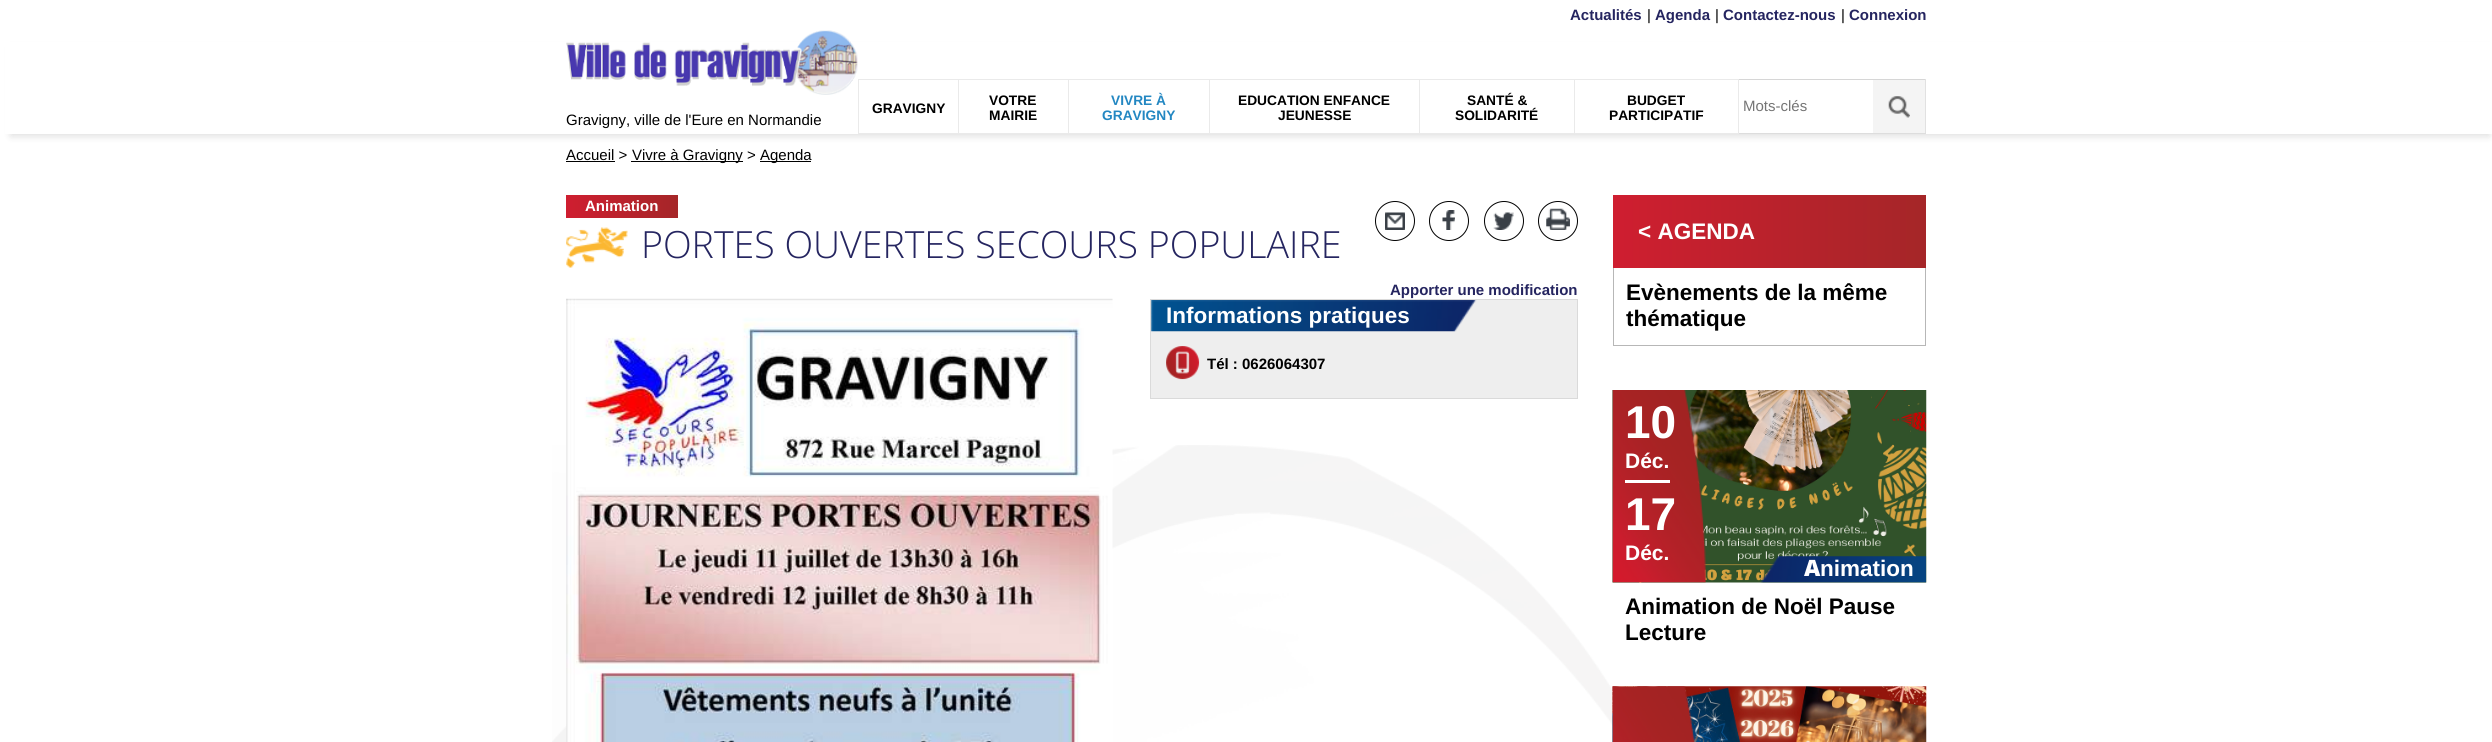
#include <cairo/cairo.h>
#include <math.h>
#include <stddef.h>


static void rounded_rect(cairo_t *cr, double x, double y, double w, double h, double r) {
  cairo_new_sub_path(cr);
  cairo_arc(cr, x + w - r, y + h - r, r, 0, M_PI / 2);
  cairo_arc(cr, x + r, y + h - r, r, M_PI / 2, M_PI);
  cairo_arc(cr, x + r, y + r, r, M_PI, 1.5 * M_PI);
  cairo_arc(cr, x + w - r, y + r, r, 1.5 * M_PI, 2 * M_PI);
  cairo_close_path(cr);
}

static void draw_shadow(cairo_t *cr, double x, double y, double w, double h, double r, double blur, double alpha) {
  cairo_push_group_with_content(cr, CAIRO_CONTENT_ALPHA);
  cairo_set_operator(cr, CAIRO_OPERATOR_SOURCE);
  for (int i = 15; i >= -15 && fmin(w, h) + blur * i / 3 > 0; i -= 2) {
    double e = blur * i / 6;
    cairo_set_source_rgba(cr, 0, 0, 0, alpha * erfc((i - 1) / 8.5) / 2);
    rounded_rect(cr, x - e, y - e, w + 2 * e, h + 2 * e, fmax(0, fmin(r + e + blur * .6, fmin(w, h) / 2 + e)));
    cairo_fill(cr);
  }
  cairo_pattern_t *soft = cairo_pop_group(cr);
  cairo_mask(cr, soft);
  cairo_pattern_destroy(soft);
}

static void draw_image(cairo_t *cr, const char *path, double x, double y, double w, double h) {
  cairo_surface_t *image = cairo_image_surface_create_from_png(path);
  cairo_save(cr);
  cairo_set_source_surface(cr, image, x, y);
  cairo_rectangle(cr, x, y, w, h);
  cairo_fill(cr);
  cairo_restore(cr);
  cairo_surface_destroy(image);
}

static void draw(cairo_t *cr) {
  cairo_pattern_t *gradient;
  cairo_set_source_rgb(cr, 1, 1, 1);
  cairo_paint(cr);
  draw_image(cr, "images/1.png", 552, 445, 1090, 297);
  cairo_set_source_rgb(cr, 0, 0, 0);
  draw_shadow(cr, 11, 48, 2478, 88, 0, 4, 0.14);
  cairo_set_source_rgb(cr, 1, 1, 1);
  cairo_rectangle(cr, 5, 42, 2487, 92);
  cairo_fill(cr);
  cairo_set_source_rgb(cr, 234 / 255.0, 234 / 255.0, 234 / 255.0);
  cairo_rectangle(cr, 1574, 79, 165, 1);
  cairo_fill(cr);
  cairo_rectangle(cr, 1738, 79, 1, 55);
  cairo_fill(cr);
  cairo_rectangle(cr, 1574, 133, 165, 1);
  cairo_fill(cr);
  cairo_rectangle(cr, 1574, 79, 1, 55);
  cairo_fill(cr);
  cairo_rectangle(cr, 1419, 79, 156, 1);
  cairo_fill(cr);
  cairo_rectangle(cr, 1419, 133, 156, 1);
  cairo_fill(cr);
  cairo_rectangle(cr, 1419, 79, 1, 55);
  cairo_fill(cr);
  cairo_rectangle(cr, 1209, 79, 211, 1);
  cairo_fill(cr);
  cairo_rectangle(cr, 1209, 133, 211, 1);
  cairo_fill(cr);
  cairo_rectangle(cr, 1209, 79, 1, 55);
  cairo_fill(cr);
  cairo_rectangle(cr, 1068, 79, 142, 1);
  cairo_fill(cr);
  cairo_rectangle(cr, 1068, 133, 142, 1);
  cairo_fill(cr);
  cairo_rectangle(cr, 1068, 79, 1, 55);
  cairo_fill(cr);
  cairo_rectangle(cr, 958, 79, 111, 1);
  cairo_fill(cr);
  cairo_rectangle(cr, 958, 133, 111, 1);
  cairo_fill(cr);
  cairo_rectangle(cr, 958, 79, 1, 55);
  cairo_fill(cr);
  cairo_rectangle(cr, 858, 79, 101, 1);
  cairo_fill(cr);
  cairo_rectangle(cr, 858, 133, 101, 1);
  cairo_fill(cr);
  cairo_rectangle(cr, 858, 79, 1, 55);
  cairo_fill(cr);
  cairo_set_source_rgb(cr, 214 / 255.0, 214 / 255.0, 214 / 255.0);
  cairo_rectangle(cr, 1739, 79, 187, 1);
  cairo_fill(cr);
  cairo_set_source_rgb(cr, 225 / 255.0, 225 / 255.0, 225 / 255.0);
  cairo_rectangle(cr, 1925, 79, 1, 55);
  cairo_fill(cr);
  cairo_set_source_rgb(cr, 221 / 255.0, 221 / 255.0, 221 / 255.0);
  cairo_rectangle(cr, 1739, 133, 187, 1);
  cairo_fill(cr);
  cairo_set_source_rgb(cr, 244 / 255.0, 244 / 255.0, 244 / 255.0);
  cairo_rectangle(cr, 1873, 80, 52, 53);
  cairo_fill(cr);
  draw_image(cr, "images/2.png", 1888, 96, 22, 22);
  draw_image(cr, "images/3.png", 566, 30, 292, 65);
  cairo_set_source_rgb(cr, 0, 0, 0);
  cairo_rectangle(cr, 566, 161, 49, 1);
  cairo_fill(cr);
  cairo_rectangle(cr, 631, 161, 112, 1);
  cairo_fill(cr);
  cairo_rectangle(cr, 760, 161, 51, 1);
  cairo_fill(cr);
  gradient = cairo_pattern_create_linear(566, 206, 678, 206);
  cairo_pattern_add_color_stop_rgba(gradient, 0, 207 / 255.0, 30 / 255.0, 48 / 255.0, 1);
  cairo_pattern_add_color_stop_rgba(gradient, 1, 165 / 255.0, 38 / 255.0, 40 / 255.0, 1);
  cairo_set_source(cr, gradient);
  cairo_pattern_destroy(gradient);
  cairo_rectangle(cr, 566, 195, 112, 23);
  cairo_fill(cr);
  cairo_arc(cr, 1395, 221, 19.5, 0, 2 * M_PI);
  cairo_set_source_rgb(cr, 0, 0, 0);
  cairo_set_line_width(cr, 1);
  cairo_stroke(cr);
  draw_image(cr, "images/4.png", 1385, 212, 20, 18);
  cairo_arc(cr, 1449, 221, 19.5, 0, 2 * M_PI);
  cairo_stroke(cr);
  draw_image(cr, "images/5.png", 1442, 210, 13, 20);
  cairo_arc(cr, 1504, 221, 19.5, 0, 2 * M_PI);
  cairo_stroke(cr);
  draw_image(cr, "images/6.png", 1493, 212, 21, 18);
  cairo_arc(cr, 1558, 221, 19.5, 0, 2 * M_PI);
  cairo_stroke(cr);
  draw_image(cr, "images/7.png", 1546, 208, 24, 22);
  draw_image(cr, "images/8.png", 566, 227, 62, 41);
  draw_image(cr, "images/9.png", 566, 298, 547, 444);
  cairo_set_source_rgb(cr, 238 / 255.0, 238 / 255.0, 238 / 255.0);
  cairo_rectangle(cr, 1150.5, 299.5, 427, 99);
  cairo_fill_preserve(cr);
  cairo_set_source_rgb(cr, 218 / 255.0, 218 / 255.0, 218 / 255.0);
  cairo_stroke(cr);
  draw_image(cr, "images/10.png", 1151, 300, 326, 32);
  draw_image(cr, "images/11.png", 1166, 346, 34, 34);
  gradient = cairo_pattern_create_linear(1613, 231, 1926, 231);
  cairo_pattern_add_color_stop_rgba(gradient, 0, 207 / 255.0, 30 / 255.0, 48 / 255.0, 1);
  cairo_pattern_add_color_stop_rgba(gradient, 1, 165 / 255.0, 38 / 255.0, 40 / 255.0, 1);
  cairo_set_source(cr, gradient);
  cairo_pattern_destroy(gradient);
  cairo_rectangle(cr, 1613, 195, 313, 73);
  cairo_fill(cr);
  cairo_set_source_rgb(cr, 183 / 255.0, 183 / 255.0, 183 / 255.0);
  cairo_rectangle(cr, 1925, 268, 1, 78);
  cairo_fill(cr);
  cairo_rectangle(cr, 1613, 345, 313, 1);
  cairo_fill(cr);
  cairo_rectangle(cr, 1613, 268, 1, 78);
  cairo_fill(cr);
  draw_image(cr, "images/12.png", 1612, 390, 315, 193);
  draw_image(cr, "images/13.png", 1612, 390, 94, 193);
  cairo_set_source_rgb(cr, 1, 1, 1);
  cairo_rectangle(cr, 1625, 480, 45, 3);
  cairo_fill(cr);
  draw_image(cr, "images/14.png", 1760, 556, 167, 27);
  draw_image(cr, "images/15.png", 1612, 686, 315, 56);
  draw_image(cr, "images/16.png", 1612, 686, 83, 56);
  cairo_select_font_face(cr, "Liberation Sans", CAIRO_FONT_SLANT_NORMAL, CAIRO_FONT_WEIGHT_BOLD);
  cairo_set_font_size(cr, 15);
  cairo_set_source_rgb(cr, 37 / 255.0, 37 / 255.0, 96 / 255.0);
  cairo_move_to(cr, 1570, 20);
  cairo_show_text(cr, "Actualités");
  cairo_select_font_face(cr, "Liberation Sans", CAIRO_FONT_SLANT_NORMAL, CAIRO_FONT_WEIGHT_NORMAL);
  cairo_set_source_rgb(cr, 0, 0, 0);
  cairo_move_to(cr, 1647, 20);
  cairo_show_text(cr, "|");
  cairo_select_font_face(cr, "Liberation Sans", CAIRO_FONT_SLANT_NORMAL, CAIRO_FONT_WEIGHT_BOLD);
  cairo_set_source_rgb(cr, 37 / 255.0, 37 / 255.0, 96 / 255.0);
  cairo_move_to(cr, 1655, 20);
  cairo_show_text(cr, "Agenda");
  cairo_select_font_face(cr, "Liberation Sans", CAIRO_FONT_SLANT_NORMAL, CAIRO_FONT_WEIGHT_NORMAL);
  cairo_set_source_rgb(cr, 0, 0, 0);
  cairo_move_to(cr, 1715, 20);
  cairo_show_text(cr, "|");
  cairo_select_font_face(cr, "Liberation Sans", CAIRO_FONT_SLANT_NORMAL, CAIRO_FONT_WEIGHT_BOLD);
  cairo_set_source_rgb(cr, 37 / 255.0, 37 / 255.0, 96 / 255.0);
  cairo_move_to(cr, 1723, 20);
  cairo_show_text(cr, "Contactez-nous");
  cairo_select_font_face(cr, "Liberation Sans", CAIRO_FONT_SLANT_NORMAL, CAIRO_FONT_WEIGHT_NORMAL);
  cairo_set_source_rgb(cr, 0, 0, 0);
  cairo_move_to(cr, 1841, 20);
  cairo_show_text(cr, "|");
  cairo_select_font_face(cr, "Liberation Sans", CAIRO_FONT_SLANT_NORMAL, CAIRO_FONT_WEIGHT_BOLD);
  cairo_set_source_rgb(cr, 37 / 255.0, 37 / 255.0, 96 / 255.0);
  cairo_move_to(cr, 1849, 20);
  cairo_show_text(cr, "Connexion");
  cairo_set_font_size(cr, 13.75);
  cairo_set_source_rgb(cr, 0, 0, 0);
  cairo_move_to(cr, 872, 113);
  cairo_show_text(cr, "GRAVIGNY");
  cairo_move_to(cr, 989, 105);
  cairo_show_text(cr, "VOTRE");
  cairo_move_to(cr, 989, 120);
  cairo_show_text(cr, "MAIRIE");
  cairo_set_source_rgb(cr, 35 / 255.0, 135 / 255.0, 194 / 255.0);
  cairo_move_to(cr, 1111, 105);
  cairo_show_text(cr, "VIVRE À");
  cairo_move_to(cr, 1102, 120);
  cairo_show_text(cr, "GRAVIGNY");
  cairo_set_source_rgb(cr, 0, 0, 0);
  cairo_move_to(cr, 1238, 105);
  cairo_show_text(cr, "EDUCATION ENFANCE");
  cairo_move_to(cr, 1278, 120);
  cairo_show_text(cr, "JEUNESSE");
  cairo_move_to(cr, 1467, 105);
  cairo_show_text(cr, "SANTÉ &");
  cairo_move_to(cr, 1455, 120);
  cairo_show_text(cr, "SOLIDARITÉ");
  cairo_move_to(cr, 1627, 105);
  cairo_show_text(cr, "BUDGET");
  cairo_move_to(cr, 1609, 120);
  cairo_show_text(cr, "PARTICIPATIF");
  cairo_select_font_face(cr, "Liberation Sans", CAIRO_FONT_SLANT_NORMAL, CAIRO_FONT_WEIGHT_NORMAL);
  cairo_set_font_size(cr, 15);
  cairo_set_source_rgb(cr, 117 / 255.0, 117 / 255.0, 117 / 255.0);
  cairo_move_to(cr, 1743, 111);
  cairo_show_text(cr, "Mots-clés");
  cairo_set_source_rgb(cr, 0, 0, 0);
  cairo_move_to(cr, 566, 125);
  cairo_show_text(cr, "Gravigny, ville de l'Eure en Normandie");
  cairo_move_to(cr, 566, 160);
  cairo_show_text(cr, "Accueil >");
  cairo_move_to(cr, 632, 160);
  cairo_show_text(cr, "Vivre à Gravigny >");
  cairo_move_to(cr, 760, 160);
  cairo_show_text(cr, "Agenda");
  cairo_select_font_face(cr, "Liberation Sans", CAIRO_FONT_SLANT_NORMAL, CAIRO_FONT_WEIGHT_BOLD);
  cairo_set_source_rgb(cr, 1, 1, 1);
  cairo_move_to(cr, 585, 211);
  cairo_show_text(cr, "Animation");
  cairo_select_font_face(cr, "Open Sans Light", CAIRO_FONT_SLANT_NORMAL, CAIRO_FONT_WEIGHT_NORMAL);
  cairo_set_font_size(cr, 37.5);
  cairo_set_source_rgb(cr, 37 / 255.0, 37 / 255.0, 96 / 255.0);
  cairo_move_to(cr, 641, 258);
  cairo_show_text(cr, "PORTES OUVERTES SECOURS POPULAIRE");
  cairo_select_font_face(cr, "Liberation Sans", CAIRO_FONT_SLANT_NORMAL, CAIRO_FONT_WEIGHT_BOLD);
  cairo_set_font_size(cr, 15);
  cairo_move_to(cr, 1390, 295);
  cairo_show_text(cr, "Apporter une modification");
  cairo_set_font_size(cr, 22.5);
  cairo_set_source_rgb(cr, 1, 1, 1);
  cairo_move_to(cr, 1166, 323);
  cairo_show_text(cr, "Informations pratiques");
  cairo_set_font_size(cr, 15);
  cairo_set_source_rgb(cr, 0, 0, 0);
  cairo_move_to(cr, 1207, 369);
  cairo_show_text(cr, "Tél : 0626064307");
  cairo_set_font_size(cr, 22.5);
  cairo_set_source_rgb(cr, 1, 1, 1);
  cairo_move_to(cr, 1638, 239);
  cairo_show_text(cr, "< AGENDA");
  cairo_set_source_rgb(cr, 0, 0, 0);
  cairo_move_to(cr, 1626, 300);
  cairo_show_text(cr, "Evènements de la même");
  cairo_move_to(cr, 1626, 326);
  cairo_show_text(cr, "thématique");
  cairo_set_font_size(cr, 46);
  cairo_set_source_rgb(cr, 1, 1, 1);
  cairo_move_to(cr, 1625, 438);
  cairo_show_text(cr, "10");
  cairo_set_font_size(cr, 21);
  cairo_move_to(cr, 1625, 468);
  cairo_show_text(cr, "Déc.");
  cairo_set_font_size(cr, 46);
  cairo_move_to(cr, 1625, 530);
  cairo_show_text(cr, "17");
  cairo_set_font_size(cr, 21);
  cairo_move_to(cr, 1625, 560);
  cairo_show_text(cr, "Déc.");
  cairo_select_font_face(cr, "Noto Sans Black", CAIRO_FONT_SLANT_NORMAL, CAIRO_FONT_WEIGHT_NORMAL);
  cairo_set_font_size(cr, 22.5);
  cairo_move_to(cr, 1804, 576);
  cairo_show_text(cr, "A");
  cairo_select_font_face(cr, "Liberation Sans", CAIRO_FONT_SLANT_NORMAL, CAIRO_FONT_WEIGHT_BOLD);
  cairo_move_to(cr, 1820, 576);
  cairo_show_text(cr, "nimation");
  cairo_set_source_rgb(cr, 0, 0, 0);
  cairo_move_to(cr, 1625, 614);
  cairo_show_text(cr, "Animation de Noël Pause");
  cairo_move_to(cr, 1625, 640);
  cairo_show_text(cr, "Lecture");
}

int main(void) {
  cairo_surface_t *surface = cairo_image_surface_create(CAIRO_FORMAT_RGB24, 2492, 742);
  cairo_t *cr = cairo_create(surface);
  cairo_font_options_t *options = cairo_font_options_create();
  cairo_font_options_set_hint_metrics(options, CAIRO_HINT_METRICS_OFF);
  cairo_font_options_set_hint_style(options, CAIRO_HINT_STYLE_NONE);
  cairo_set_font_options(cr, options);
  cairo_set_miter_limit(cr, 4);
  draw(cr);
  cairo_surface_write_to_png(surface, "out.png");
  cairo_font_options_destroy(options);
  cairo_destroy(cr);
  cairo_surface_destroy(surface);
  return 0;
}
